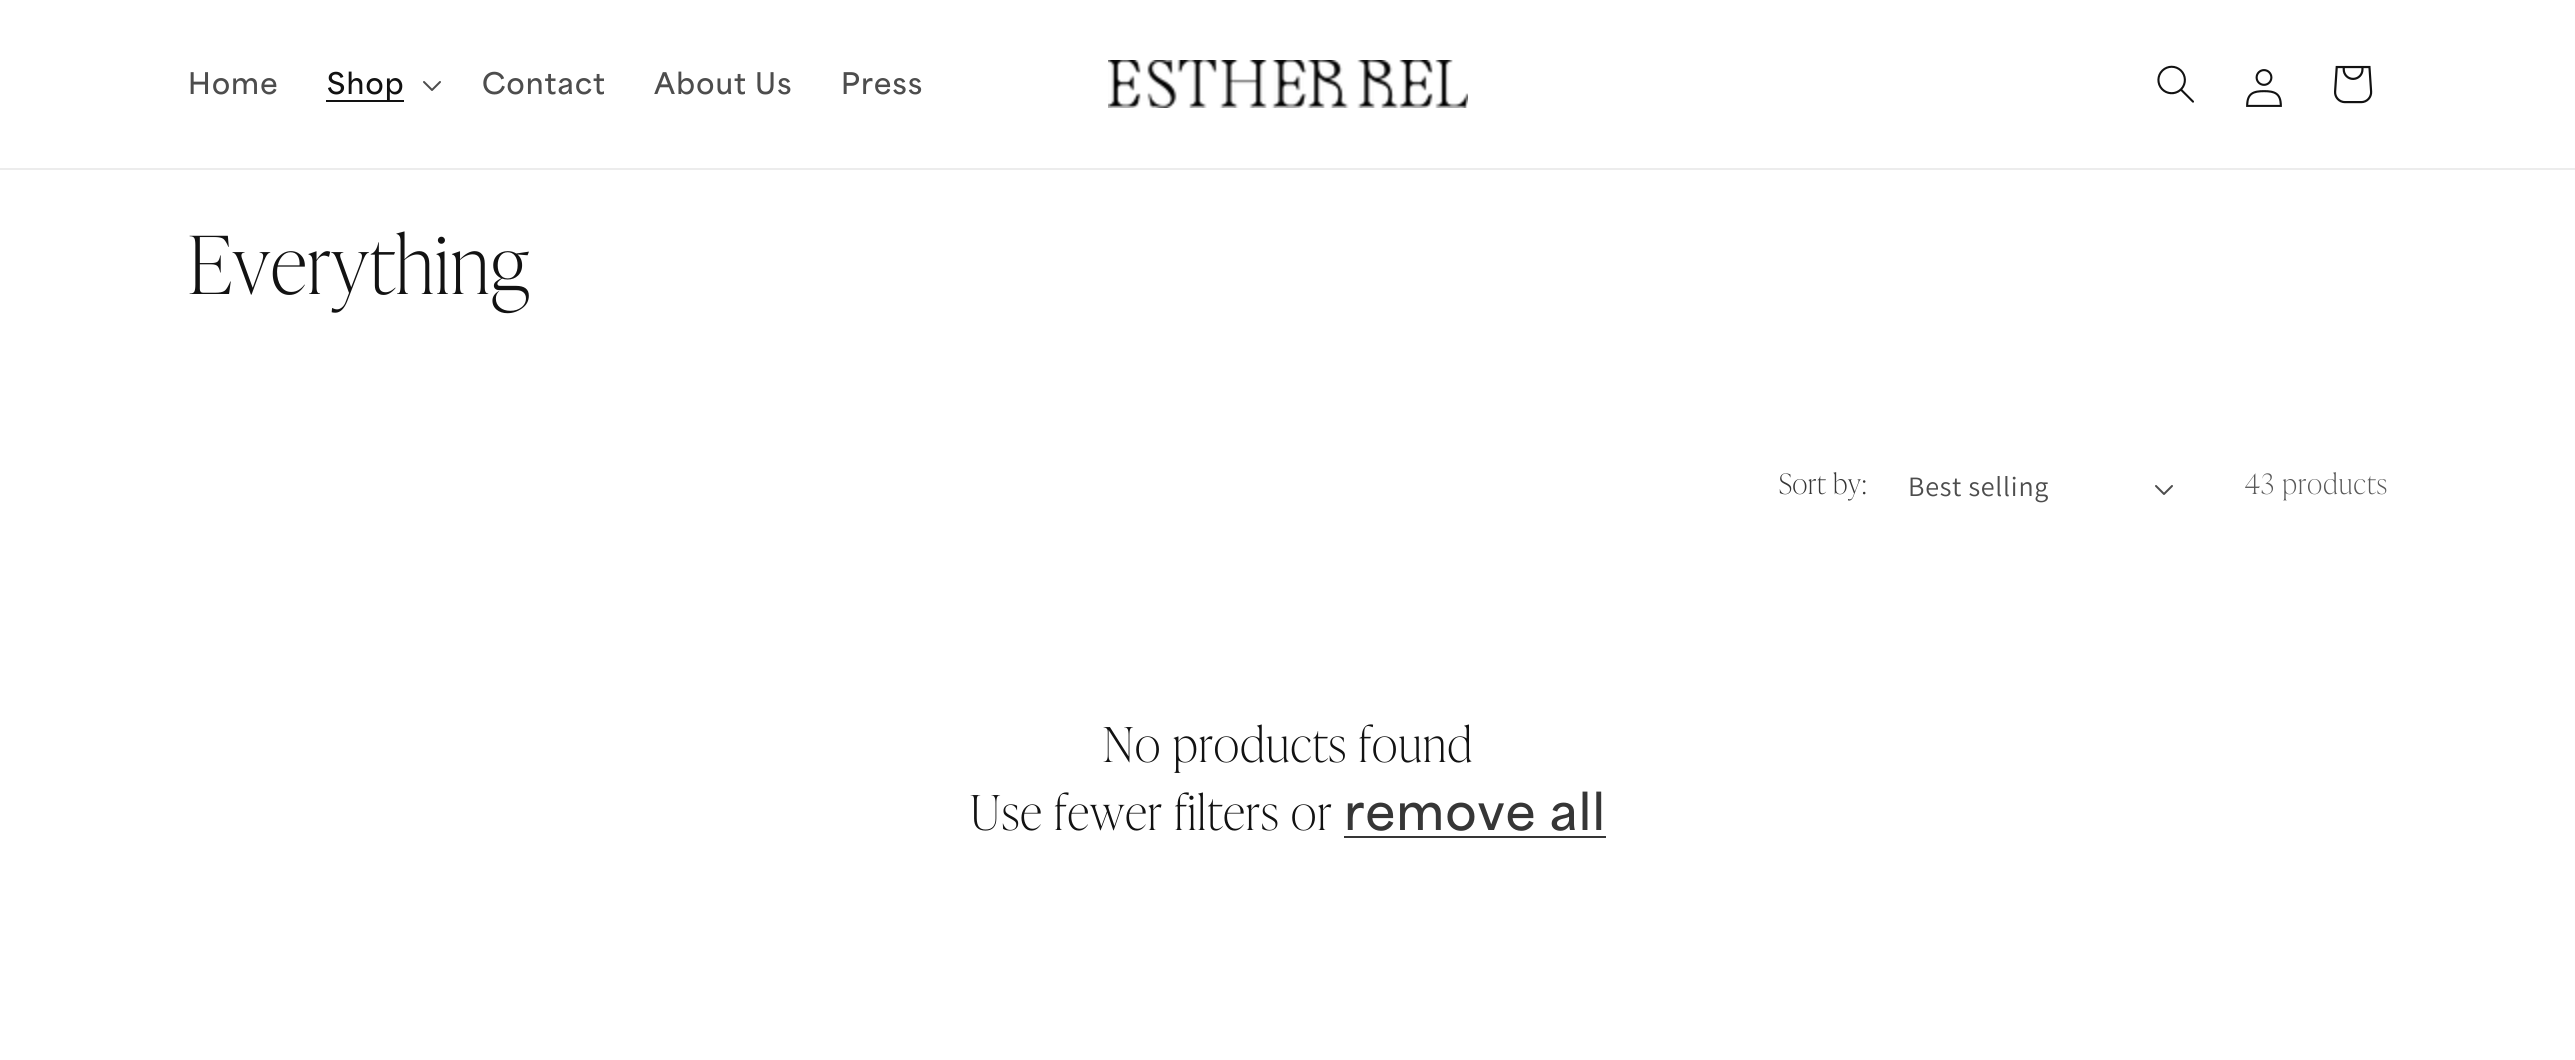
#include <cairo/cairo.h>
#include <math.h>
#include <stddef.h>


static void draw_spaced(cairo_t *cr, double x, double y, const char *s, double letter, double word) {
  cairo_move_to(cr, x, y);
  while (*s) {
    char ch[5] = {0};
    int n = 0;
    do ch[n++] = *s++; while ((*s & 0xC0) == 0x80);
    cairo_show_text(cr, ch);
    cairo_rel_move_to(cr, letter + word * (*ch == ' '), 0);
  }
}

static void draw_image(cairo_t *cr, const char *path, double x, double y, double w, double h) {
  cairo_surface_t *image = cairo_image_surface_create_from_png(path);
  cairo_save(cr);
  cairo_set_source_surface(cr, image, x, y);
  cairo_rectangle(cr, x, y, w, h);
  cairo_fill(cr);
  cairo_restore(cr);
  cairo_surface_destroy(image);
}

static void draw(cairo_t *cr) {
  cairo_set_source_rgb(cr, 1, 1, 1);
  cairo_paint(cr);
  cairo_set_source_rgb(cr, 236 / 255.0, 236 / 255.0, 236 / 255.0);
  cairo_rectangle(cr, 0, 168, 2575, 2);
  cairo_fill(cr);
  cairo_set_source_rgb(cr, 18 / 255.0, 18 / 255.0, 18 / 255.0);
  cairo_rectangle(cr, 326, 100, 78, 2);
  cairo_fill(cr);
  draw_image(cr, "images/1.png", 423, 81, 18, 10);
  draw_image(cr, "images/2.png", 1108, 60, 360, 48);
  draw_image(cr, "images/3.png", 2157, 65, 37, 38);
  draw_image(cr, "images/4.png", 2246, 69, 36, 38);
  draw_image(cr, "images/5.png", 2334, 65, 39, 39);
  draw_image(cr, "images/1.png", 2155, 485, 18, 10);
  cairo_set_source_rgb(cr, 54 / 255.0, 54 / 255.0, 54 / 255.0);
  cairo_rectangle(cr, 1344, 836, 262, 2);
  cairo_fill(cr);
  cairo_select_font_face(cr, "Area", CAIRO_FONT_SLANT_NORMAL, CAIRO_FONT_WEIGHT_BOLD);
  cairo_set_font_size(cr, 28);
  cairo_set_source_rgb(cr, 77 / 255.0, 77 / 255.0, 77 / 255.0);
  draw_spaced(cr, 188, 94, "Home", 1.2, 0);
  cairo_set_source_rgb(cr, 18 / 255.0, 18 / 255.0, 18 / 255.0);
  draw_spaced(cr, 327, 94, "Shop", 1.2, 0);
  cairo_set_source_rgb(cr, 77 / 255.0, 77 / 255.0, 77 / 255.0);
  draw_spaced(cr, 482, 94, "Contact", 1.2, 0);
  draw_spaced(cr, 654, 94, "About Us", 1.2, 0);
  draw_spaced(cr, 841, 94, "Press", 1.2, 0);
  cairo_select_font_face(cr, "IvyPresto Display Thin", CAIRO_FONT_SLANT_NORMAL, CAIRO_FONT_WEIGHT_NORMAL);
  cairo_set_font_size(cr, 80);
  cairo_set_source_rgb(cr, 18 / 255.0, 18 / 255.0, 18 / 255.0);
  draw_spaced(cr, 188, 294, "Everything", 1.2, 0);
  cairo_set_font_size(cr, 28);
  cairo_set_source_rgb(cr, 54 / 255.0, 54 / 255.0, 54 / 255.0);
  draw_spaced(cr, 1779, 494, "Sort by:", 0.75, 0);
  cairo_select_font_face(cr, "Assistant", CAIRO_FONT_SLANT_NORMAL, CAIRO_FONT_WEIGHT_NORMAL);
  cairo_set_source_rgb(cr, 77 / 255.0, 77 / 255.0, 77 / 255.0);
  draw_spaced(cr, 1908, 496, "Best selling", 0.75, 0);
  cairo_select_font_face(cr, "IvyPresto Display Thin", CAIRO_FONT_SLANT_NORMAL, CAIRO_FONT_WEIGHT_NORMAL);
  cairo_set_source_rgb(cr, 89 / 255.0, 89 / 255.0, 89 / 255.0);
  draw_spaced(cr, 2245, 494, "43 products", 1.2, 0);
  cairo_set_font_size(cr, 48);
  cairo_set_source_rgb(cr, 18 / 255.0, 18 / 255.0, 18 / 255.0);
  draw_spaced(cr, 1103, 762, "No products found", 1.2, 0);
  draw_spaced(cr, 970, 830, "Use fewer filters or", 1.2, 0);
  cairo_select_font_face(cr, "Area", CAIRO_FONT_SLANT_NORMAL, CAIRO_FONT_WEIGHT_BOLD);
  cairo_set_source_rgb(cr, 54 / 255.0, 54 / 255.0, 54 / 255.0);
  draw_spaced(cr, 1344, 830, "remove all", 1.2, 0);
}

int main(void) {
  cairo_surface_t *surface = cairo_image_surface_create(CAIRO_FORMAT_RGB24, 2575, 1060);
  cairo_t *cr = cairo_create(surface);
  cairo_font_options_t *options = cairo_font_options_create();
  cairo_font_options_set_hint_metrics(options, CAIRO_HINT_METRICS_OFF);
  cairo_font_options_set_hint_style(options, CAIRO_HINT_STYLE_NONE);
  cairo_set_font_options(cr, options);
  cairo_set_miter_limit(cr, 4);
  draw(cr);
  cairo_surface_write_to_png(surface, "out.png");
  cairo_font_options_destroy(options);
  cairo_destroy(cr);
  cairo_surface_destroy(surface);
  return 0;
}
